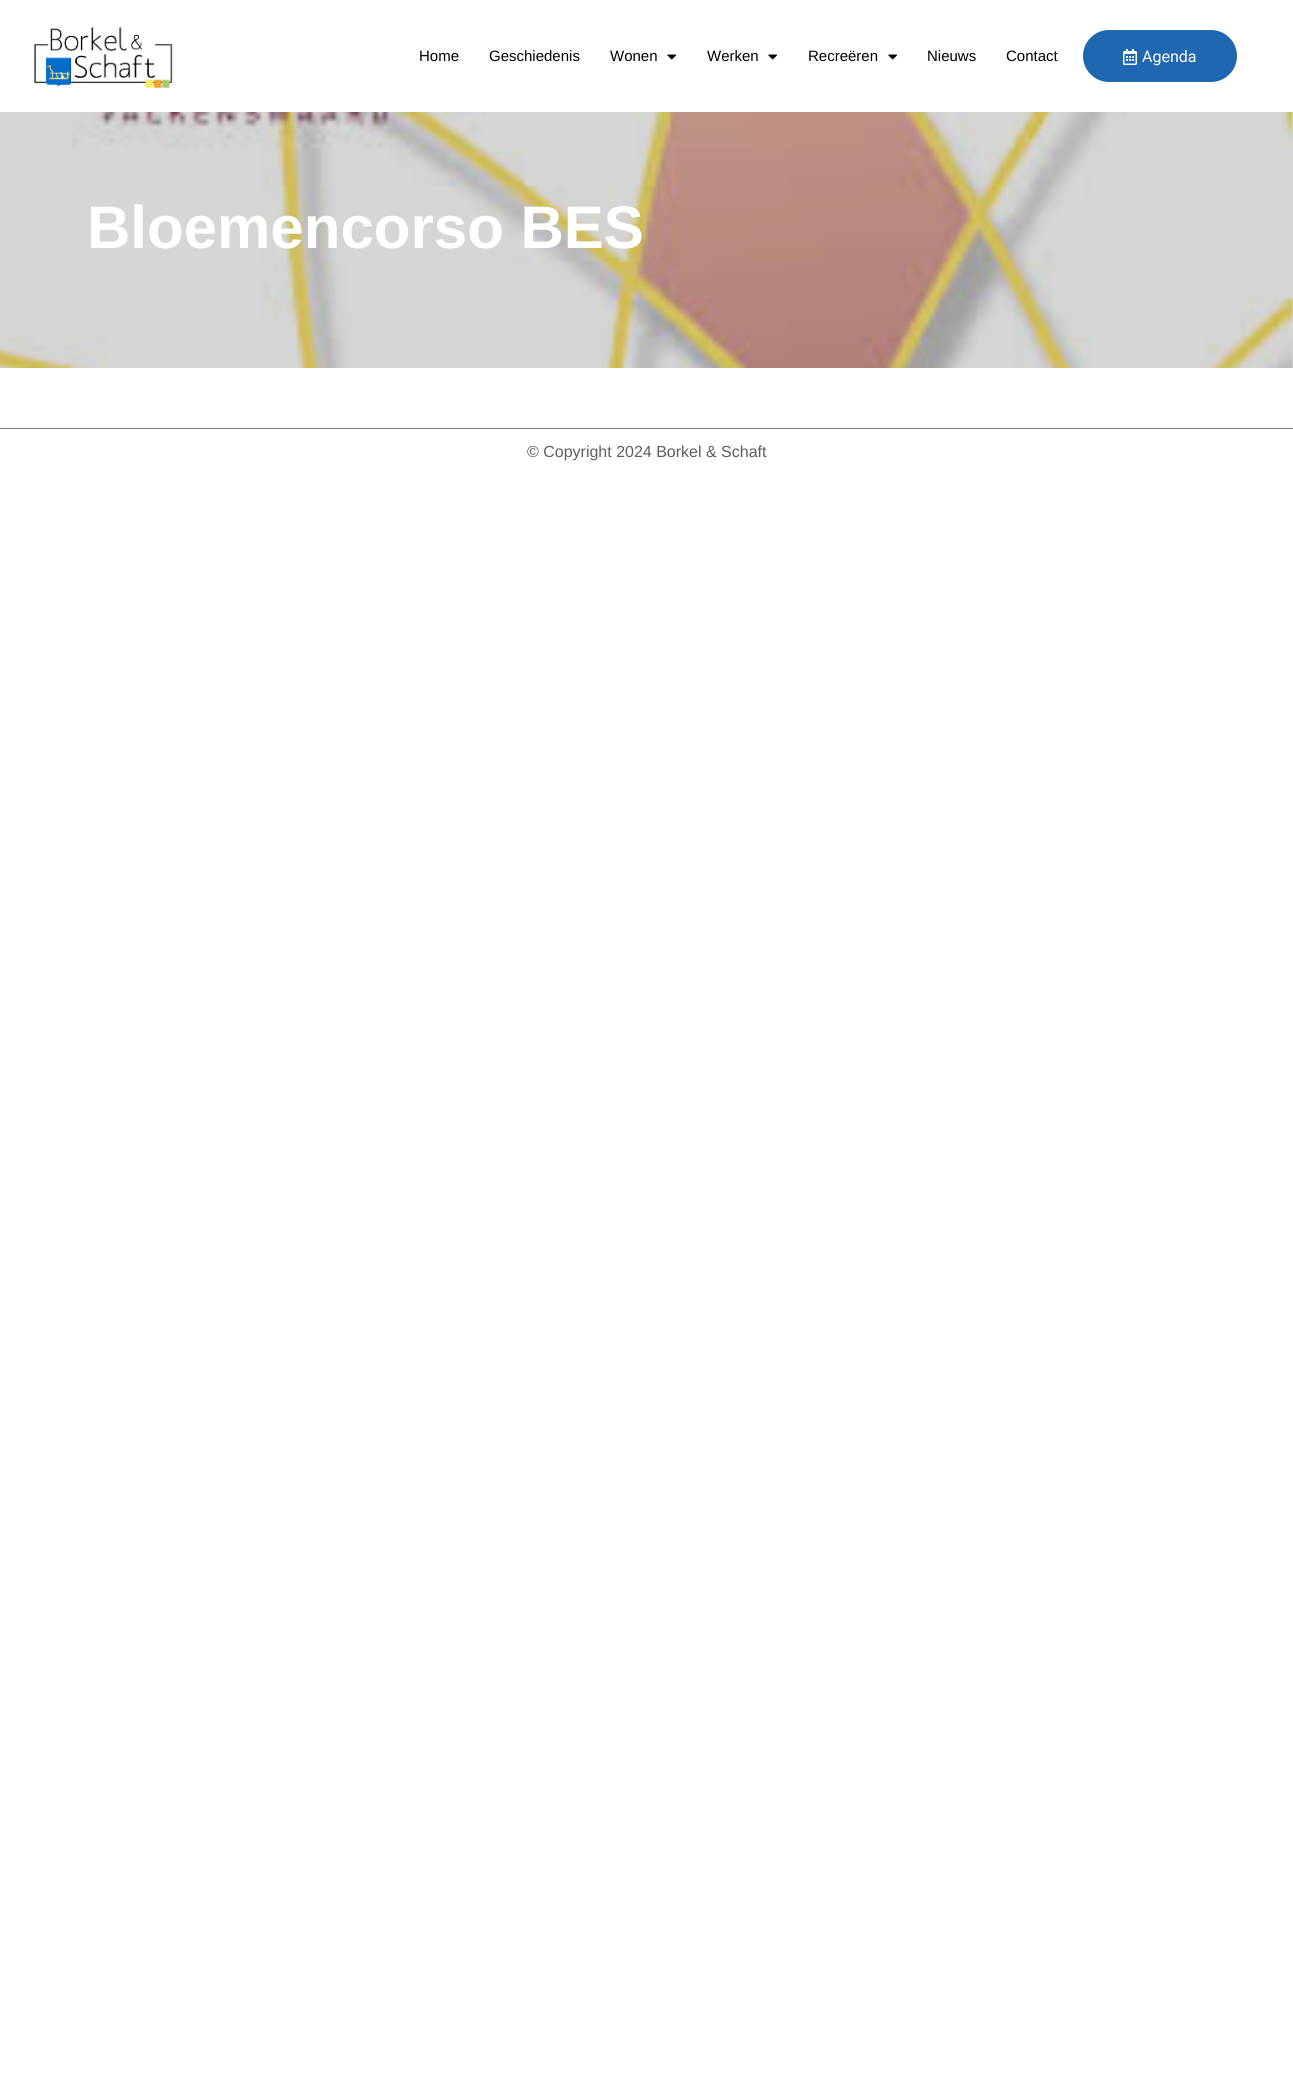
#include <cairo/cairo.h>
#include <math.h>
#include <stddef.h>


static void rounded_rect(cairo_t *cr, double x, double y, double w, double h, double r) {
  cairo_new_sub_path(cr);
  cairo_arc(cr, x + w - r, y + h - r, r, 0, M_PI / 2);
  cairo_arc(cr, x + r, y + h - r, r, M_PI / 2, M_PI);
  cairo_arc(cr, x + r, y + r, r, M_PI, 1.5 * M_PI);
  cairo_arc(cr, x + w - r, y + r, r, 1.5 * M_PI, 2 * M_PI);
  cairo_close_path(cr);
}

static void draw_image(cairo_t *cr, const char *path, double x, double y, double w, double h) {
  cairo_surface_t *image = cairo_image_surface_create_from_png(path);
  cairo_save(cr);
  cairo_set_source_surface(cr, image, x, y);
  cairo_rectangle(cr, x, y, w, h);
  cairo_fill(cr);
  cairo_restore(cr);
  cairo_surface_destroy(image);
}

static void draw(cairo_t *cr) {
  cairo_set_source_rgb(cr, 1, 1, 1);
  cairo_paint(cr);
  draw_image(cr, "images/1.png", 34, 27, 139, 62);
  draw_image(cr, "images/2.png", 667, 54, 9, 6);
  draw_image(cr, "images/2.png", 768, 54, 9, 6);
  draw_image(cr, "images/2.png", 888, 54, 9, 6);
  cairo_set_source_rgb(cr, 30 / 255.0, 104 / 255.0, 178 / 255.0);
  rounded_rect(cr, 1083, 30, 154, 52, 26);
  cairo_fill(cr);
  draw_image(cr, "images/3.png", 1123, 49, 14, 16);
  draw_image(cr, "images/4.png", 0, 112, 1293, 256);
  cairo_set_source_rgb(cr, 119 / 255.0, 119 / 255.0, 119 / 255.0);
  cairo_rectangle(cr, 0, 428, 1293, 1);
  cairo_fill(cr);
  cairo_select_font_face(cr, "Liberation Sans", CAIRO_FONT_SLANT_NORMAL, CAIRO_FONT_WEIGHT_NORMAL);
  cairo_set_font_size(cr, 15);
  cairo_set_source_rgb(cr, 0, 0, 0);
  cairo_move_to(cr, 419, 61);
  cairo_show_text(cr, "Home");
  cairo_move_to(cr, 489, 61);
  cairo_show_text(cr, "Geschiedenis");
  cairo_move_to(cr, 610, 61);
  cairo_show_text(cr, "Wonen");
  cairo_move_to(cr, 707, 61);
  cairo_show_text(cr, "Werken");
  cairo_move_to(cr, 808, 61);
  cairo_show_text(cr, "Recreëren");
  cairo_move_to(cr, 927, 61);
  cairo_show_text(cr, "Nieuws");
  cairo_move_to(cr, 1006, 61);
  cairo_show_text(cr, "Contact");
  cairo_select_font_face(cr, "Roboto", CAIRO_FONT_SLANT_NORMAL, CAIRO_FONT_WEIGHT_NORMAL);
  cairo_set_font_size(cr, 16);
  cairo_set_source_rgb(cr, 1, 1, 1);
  cairo_move_to(cr, 1142, 62);
  cairo_show_text(cr, "Agenda");
  cairo_select_font_face(cr, "Liberation Sans", CAIRO_FONT_SLANT_NORMAL, CAIRO_FONT_WEIGHT_BOLD);
  cairo_set_font_size(cr, 60);
  cairo_move_to(cr, 87, 248);
  cairo_show_text(cr, "Bloemencorso BES");
  cairo_select_font_face(cr, "Liberation Sans", CAIRO_FONT_SLANT_NORMAL, CAIRO_FONT_WEIGHT_NORMAL);
  cairo_set_font_size(cr, 16);
  cairo_set_source_rgb(cr, 94 / 255.0, 94 / 255.0, 94 / 255.0);
  cairo_move_to(cr, 527, 457);
  cairo_show_text(cr, "© Copyright 2024 Borkel & Schaft");
}

int main(void) {
  cairo_surface_t *surface = cairo_image_surface_create(CAIRO_FORMAT_RGB24, 1293, 2090);
  cairo_t *cr = cairo_create(surface);
  cairo_font_options_t *options = cairo_font_options_create();
  cairo_font_options_set_hint_metrics(options, CAIRO_HINT_METRICS_OFF);
  cairo_font_options_set_hint_style(options, CAIRO_HINT_STYLE_NONE);
  cairo_set_font_options(cr, options);
  cairo_set_miter_limit(cr, 4);
  draw(cr);
  cairo_surface_write_to_png(surface, "out.png");
  cairo_font_options_destroy(options);
  cairo_destroy(cr);
  cairo_surface_destroy(surface);
  return 0;
}
